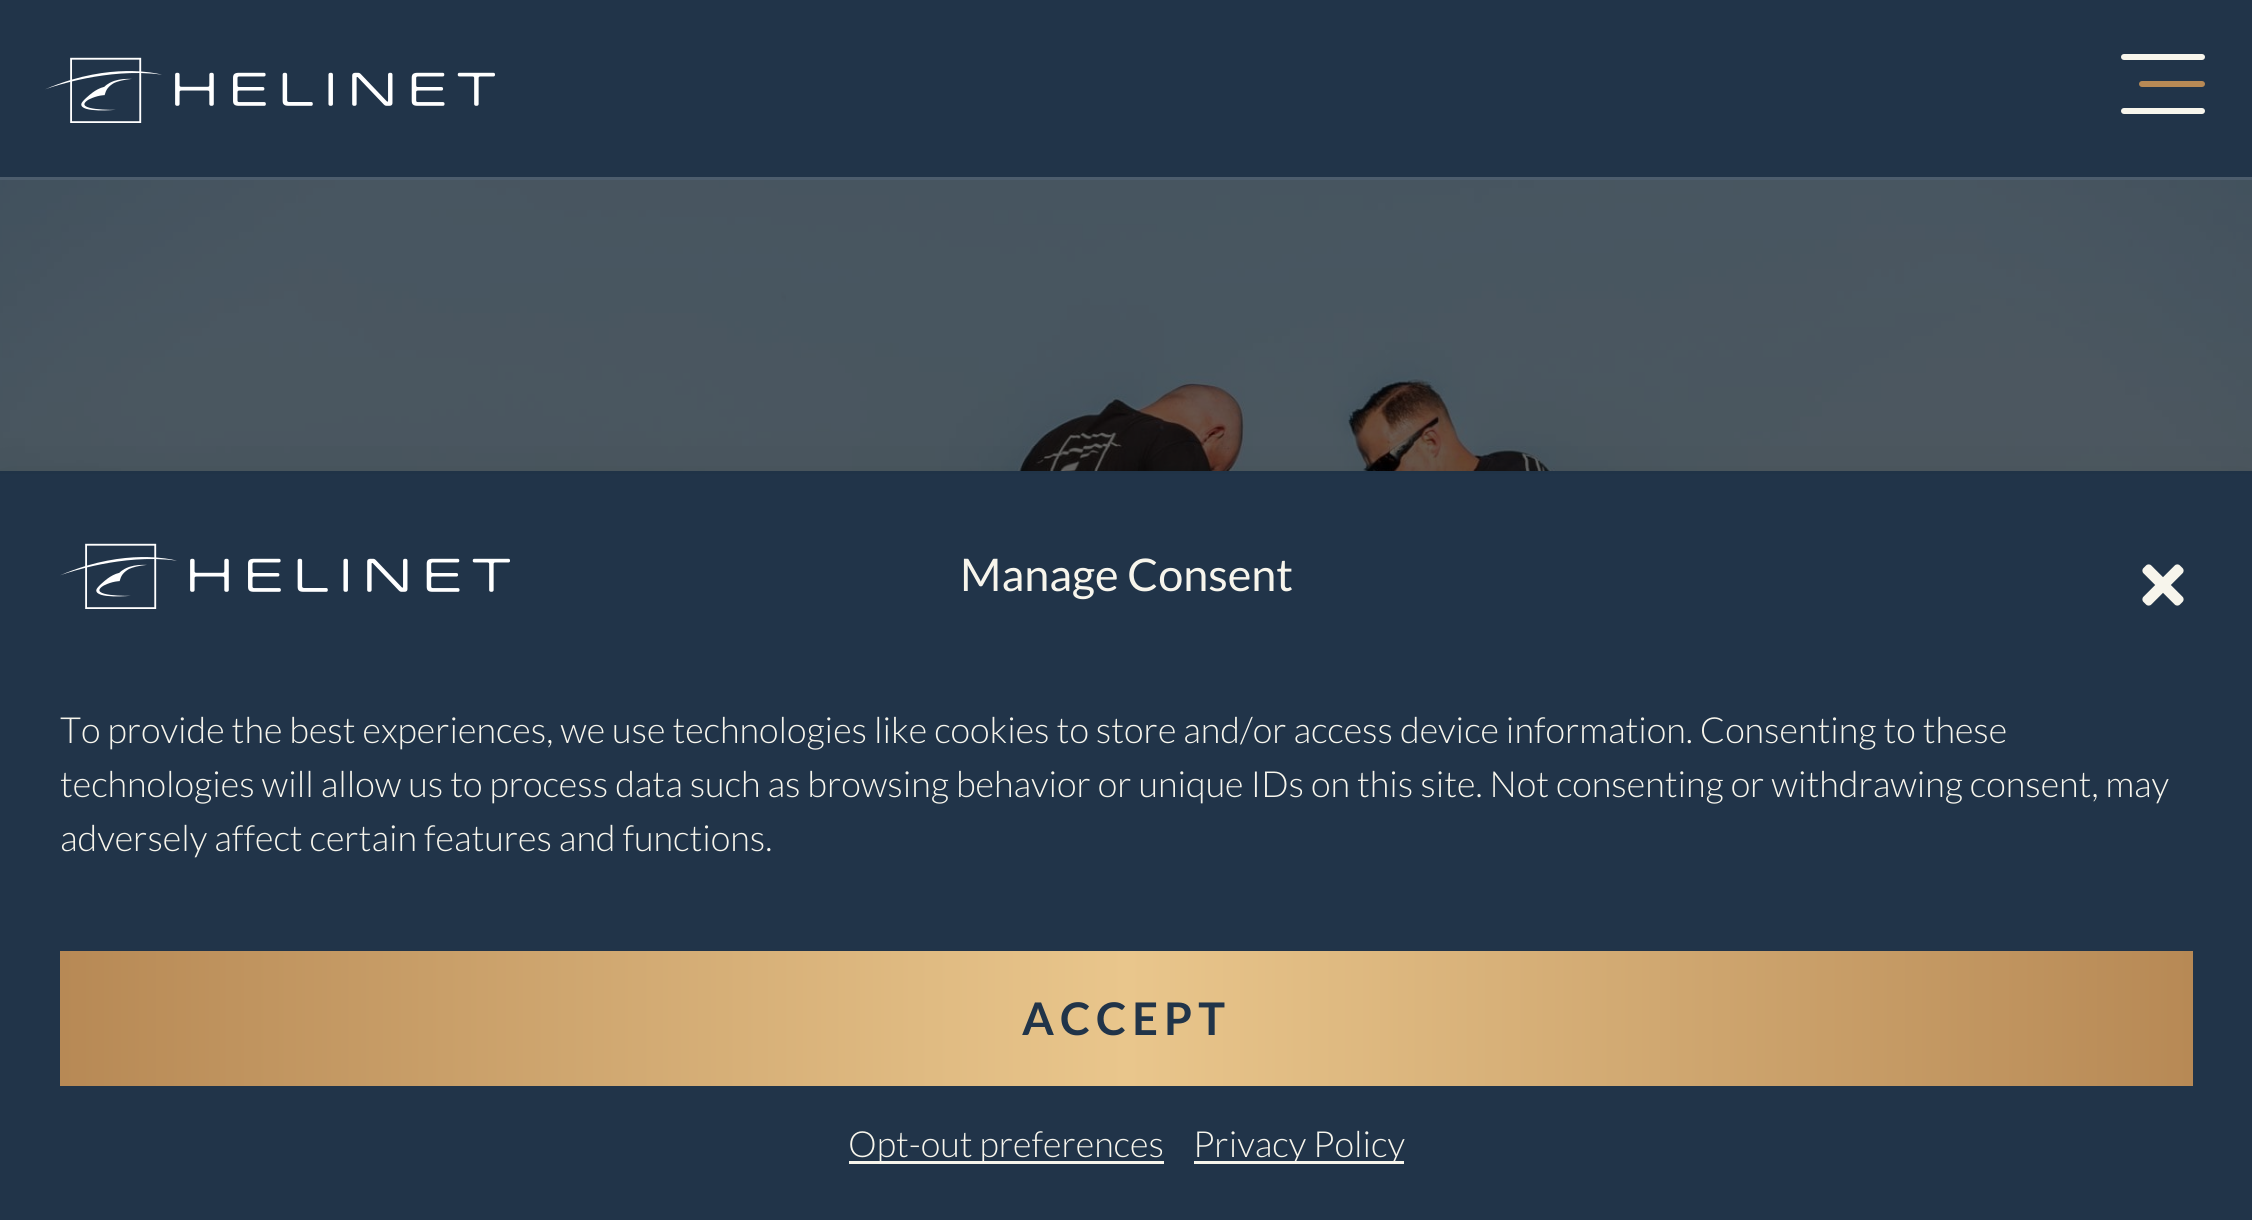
#include <cairo/cairo.h>
#include <math.h>
#include <stddef.h>


static void draw_spaced(cairo_t *cr, double x, double y, const char *s, double letter, double word) {
  cairo_move_to(cr, x, y);
  while (*s) {
    char ch[5] = {0};
    int n = 0;
    do ch[n++] = *s++; while ((*s & 0xC0) == 0x80);
    cairo_show_text(cr, ch);
    cairo_rel_move_to(cr, letter + word * (*ch == ' '), 0);
  }
}

static void rounded_rect(cairo_t *cr, double x, double y, double w, double h, double r) {
  cairo_new_sub_path(cr);
  cairo_arc(cr, x + w - r, y + h - r, r, 0, M_PI / 2);
  cairo_arc(cr, x + r, y + h - r, r, M_PI / 2, M_PI);
  cairo_arc(cr, x + r, y + r, r, M_PI, 1.5 * M_PI);
  cairo_arc(cr, x + w - r, y + r, r, 1.5 * M_PI, 2 * M_PI);
  cairo_close_path(cr);
}

static void draw_shadow(cairo_t *cr, double x, double y, double w, double h, double r, double blur, double alpha) {
  cairo_push_group_with_content(cr, CAIRO_CONTENT_ALPHA);
  cairo_set_operator(cr, CAIRO_OPERATOR_SOURCE);
  for (int i = 15; i >= -15 && fmin(w, h) + blur * i / 3 > 0; i -= 2) {
    double e = blur * i / 6;
    cairo_set_source_rgba(cr, 0, 0, 0, alpha * erfc((i - 1) / 8.5) / 2);
    rounded_rect(cr, x - e, y - e, w + 2 * e, h + 2 * e, fmax(0, fmin(r + e + blur * .6, fmin(w, h) / 2 + e)));
    cairo_fill(cr);
  }
  cairo_pattern_t *soft = cairo_pop_group(cr);
  cairo_mask(cr, soft);
  cairo_pattern_destroy(soft);
}

static void draw_image(cairo_t *cr, const char *path, double x, double y, double w, double h) {
  cairo_surface_t *image = cairo_image_surface_create_from_png(path);
  cairo_save(cr);
  cairo_set_source_surface(cr, image, x, y);
  cairo_rectangle(cr, x, y, w, h);
  cairo_fill(cr);
  cairo_restore(cr);
  cairo_surface_destroy(image);
}

static void draw(cairo_t *cr) {
  cairo_pattern_t *gradient;
  cairo_set_source_rgb(cr, 33 / 255.0, 52 / 255.0, 73 / 255.0);
  cairo_paint(cr);
  cairo_set_source_rgb(cr, 77 / 255.0, 93 / 255.0, 109 / 255.0);
  cairo_rectangle(cr, 0, 177, 2252, 3);
  cairo_fill(cr);
  draw_image(cr, "images/1.png", 45, 57, 450, 66);
  cairo_set_source_rgb(cr, 247 / 255.0, 245 / 255.0, 236 / 255.0);
  rounded_rect(cr, 2121, 54, 84, 6, 3);
  cairo_fill(cr);
  cairo_set_source_rgb(cr, 183 / 255.0, 137 / 255.0, 85 / 255.0);
  rounded_rect(cr, 2139, 81, 66, 6, 3);
  cairo_fill(cr);
  cairo_set_source_rgb(cr, 247 / 255.0, 245 / 255.0, 236 / 255.0);
  rounded_rect(cr, 2121, 108, 84, 6, 3);
  cairo_fill(cr);
  draw_image(cr, "images/2.png", 0, 180, 2252, 291);
  cairo_set_source_rgb(cr, 0, 0, 0);
  draw_shadow(cr, 0, 501, 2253, 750, 0, 30, 0.19);
  cairo_set_source_rgb(cr, 33 / 255.0, 52 / 255.0, 73 / 255.0);
  cairo_rectangle(cr, 0, 474, 2252, 746);
  cairo_fill(cr);
  draw_image(cr, "images/1.png", 60, 543, 450, 66);
  draw_image(cr, "images/3.png", 2142, 564, 42, 42);
  gradient = cairo_pattern_create_linear(60, 1019, 2193, 1019);
  cairo_pattern_add_color_stop_rgba(gradient, 0, 183 / 255.0, 137 / 255.0, 85 / 255.0, 1);
  cairo_pattern_add_color_stop_rgba(gradient, 0.5, 233 / 255.0, 198 / 255.0, 140 / 255.0, 1);
  cairo_pattern_add_color_stop_rgba(gradient, 1, 183 / 255.0, 137 / 255.0, 85 / 255.0, 1);
  cairo_set_source(cr, gradient);
  cairo_pattern_destroy(gradient);
  cairo_rectangle(cr, 60, 951, 2133, 135);
  cairo_fill(cr);
  cairo_set_source_rgb(cr, 247 / 255.0, 245 / 255.0, 236 / 255.0);
  cairo_rectangle(cr, 849, 1161, 315, 3);
  cairo_fill(cr);
  cairo_rectangle(cr, 1194, 1161, 210, 3);
  cairo_fill(cr);
  cairo_select_font_face(cr, "Lato", CAIRO_FONT_SLANT_NORMAL, CAIRO_FONT_WEIGHT_NORMAL);
  cairo_set_font_size(cr, 45);
  cairo_move_to(cr, 960, 591);
  cairo_show_text(cr, "Manage Consent");
  cairo_select_font_face(cr, "Lato Light", CAIRO_FONT_SLANT_NORMAL, CAIRO_FONT_WEIGHT_NORMAL);
  cairo_set_font_size(cr, 36);
  cairo_move_to(cr, 60, 743);
  cairo_show_text(cr, "To provide the best experiences, we use technologies like cookies to store and/or access device information. Consenting to these");
  cairo_move_to(cr, 60, 797);
  cairo_show_text(cr, "technologies will allow us to process data such as browsing behavior or unique IDs on this site. Not consenting or withdrawing consent, may");
  cairo_move_to(cr, 60, 851);
  cairo_show_text(cr, "adversely affect certain features and functions.");
  cairo_select_font_face(cr, "Lato", CAIRO_FONT_SLANT_NORMAL, CAIRO_FONT_WEIGHT_BOLD);
  cairo_set_font_size(cr, 45);
  cairo_set_source_rgb(cr, 33 / 255.0, 52 / 255.0, 73 / 255.0);
  draw_spaced(cr, 1022, 1035, "ACCEPT", 6, 0);
  cairo_select_font_face(cr, "Lato Light", CAIRO_FONT_SLANT_NORMAL, CAIRO_FONT_WEIGHT_NORMAL);
  cairo_set_font_size(cr, 36);
  cairo_set_source_rgb(cr, 247 / 255.0, 245 / 255.0, 236 / 255.0);
  cairo_move_to(cr, 848, 1157);
  cairo_show_text(cr, "Opt-out preferences");
  cairo_move_to(cr, 1193, 1157);
  cairo_show_text(cr, "Privacy Policy");
}

int main(void) {
  cairo_surface_t *surface = cairo_image_surface_create(CAIRO_FORMAT_RGB24, 2252, 1220);
  cairo_t *cr = cairo_create(surface);
  cairo_font_options_t *options = cairo_font_options_create();
  cairo_font_options_set_hint_metrics(options, CAIRO_HINT_METRICS_OFF);
  cairo_font_options_set_hint_style(options, CAIRO_HINT_STYLE_NONE);
  cairo_set_font_options(cr, options);
  cairo_set_miter_limit(cr, 4);
  draw(cr);
  cairo_surface_write_to_png(surface, "out.png");
  cairo_font_options_destroy(options);
  cairo_destroy(cr);
  cairo_surface_destroy(surface);
  return 0;
}
